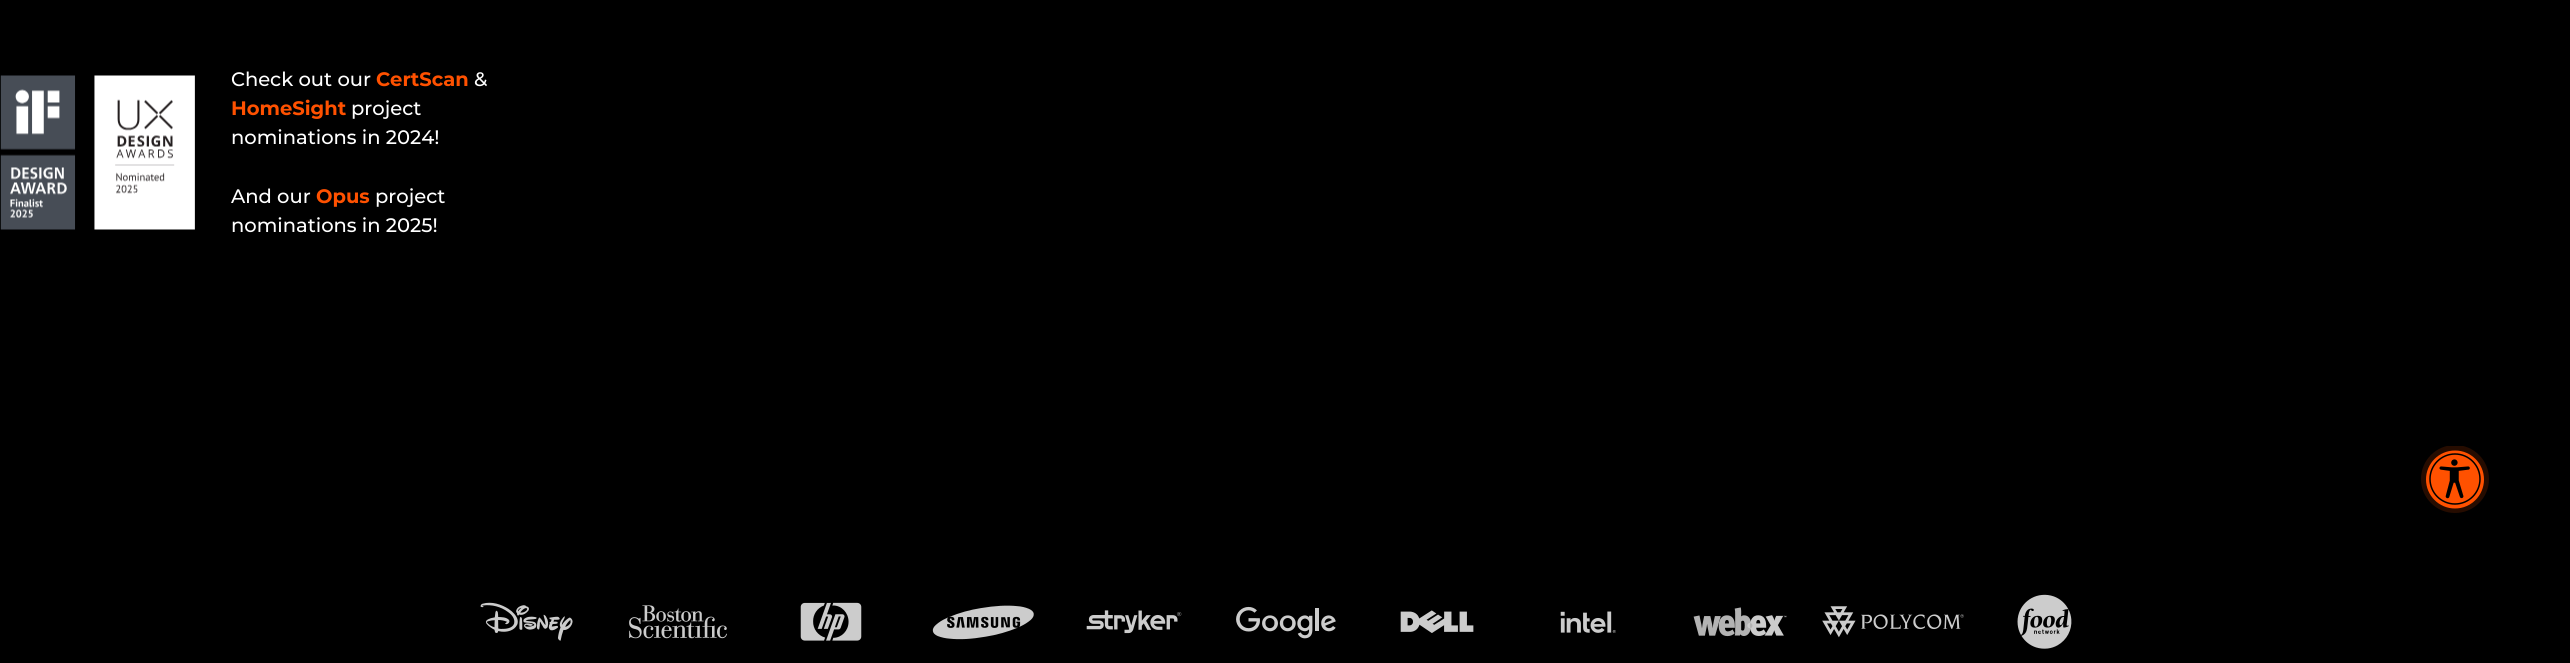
#include <cairo/cairo.h>
#include <math.h>
#include <stddef.h>


static void draw_image(cairo_t *cr, const char *path, double x, double y, double w, double h) {
  cairo_surface_t *image = cairo_image_surface_create_from_png(path);
  cairo_save(cr);
  cairo_set_source_surface(cr, image, x, y);
  cairo_rectangle(cr, x, y, w, h);
  cairo_fill(cr);
  cairo_restore(cr);
  cairo_surface_destroy(image);
}

static void draw(cairo_t *cr) {
  cairo_set_source_rgb(cr, 0, 0, 0);
  cairo_paint(cr);
  draw_image(cr, "images/1.png", 0, 75, 195, 155);
  draw_image(cr, "images/2.png", 480, 602, 93, 39);
  draw_image(cr, "images/3.png", 629, 605, 98, 34);
  draw_image(cr, "images/4.png", 800, 602, 62, 39);
  draw_image(cr, "images/5.png", 932, 605, 102, 35);
  draw_image(cr, "images/6.png", 1086, 610, 96, 24);
  draw_image(cr, "images/7.png", 1236, 606, 100, 33);
  draw_image(cr, "images/8.png", 1400, 610, 74, 23);
  draw_image(cr, "images/9.png", 1560, 611, 56, 22);
  draw_image(cr, "images/10.png", 1693, 607, 94, 30);
  draw_image(cr, "images/11.png", 1822, 606, 142, 32);
  draw_image(cr, "images/12.png", 2017, 594, 55, 55);
  draw_image(cr, "images/13.png", 2421, 446, 68, 67);
  cairo_select_font_face(cr, "Montserrat Medium", CAIRO_FONT_SLANT_NORMAL, CAIRO_FONT_WEIGHT_NORMAL);
  cairo_set_font_size(cr, 19.5);
  cairo_set_source_rgb(cr, 1, 1, 1);
  cairo_move_to(cr, 231, 86);
  cairo_show_text(cr, "Check out our");
  cairo_select_font_face(cr, "Montserrat", CAIRO_FONT_SLANT_NORMAL, CAIRO_FONT_WEIGHT_BOLD);
  cairo_set_source_rgb(cr, 1, 81 / 255.0, 0);
  cairo_move_to(cr, 376, 86);
  cairo_show_text(cr, "CertScan");
  cairo_select_font_face(cr, "Montserrat Medium", CAIRO_FONT_SLANT_NORMAL, CAIRO_FONT_WEIGHT_NORMAL);
  cairo_set_source_rgb(cr, 1, 1, 1);
  cairo_move_to(cr, 474, 86);
  cairo_show_text(cr, "&");
  cairo_select_font_face(cr, "Montserrat", CAIRO_FONT_SLANT_NORMAL, CAIRO_FONT_WEIGHT_BOLD);
  cairo_set_source_rgb(cr, 1, 81 / 255.0, 0);
  cairo_move_to(cr, 231, 115);
  cairo_show_text(cr, "HomeSight");
  cairo_select_font_face(cr, "Montserrat Medium", CAIRO_FONT_SLANT_NORMAL, CAIRO_FONT_WEIGHT_NORMAL);
  cairo_set_source_rgb(cr, 1, 1, 1);
  cairo_move_to(cr, 351, 115);
  cairo_show_text(cr, "project");
  cairo_move_to(cr, 231, 144);
  cairo_show_text(cr, "nominations in 2024!");
  cairo_move_to(cr, 231, 203);
  cairo_show_text(cr, "And our");
  cairo_select_font_face(cr, "Montserrat", CAIRO_FONT_SLANT_NORMAL, CAIRO_FONT_WEIGHT_BOLD);
  cairo_set_source_rgb(cr, 1, 81 / 255.0, 0);
  cairo_move_to(cr, 316, 203);
  cairo_show_text(cr, "Opus");
  cairo_select_font_face(cr, "Montserrat Medium", CAIRO_FONT_SLANT_NORMAL, CAIRO_FONT_WEIGHT_NORMAL);
  cairo_set_source_rgb(cr, 1, 1, 1);
  cairo_move_to(cr, 375, 203);
  cairo_show_text(cr, "project");
  cairo_move_to(cr, 231, 232);
  cairo_show_text(cr, "nominations in 2025!");
}

int main(void) {
  cairo_surface_t *surface = cairo_image_surface_create(CAIRO_FORMAT_RGB24, 2570, 663);
  cairo_t *cr = cairo_create(surface);
  cairo_font_options_t *options = cairo_font_options_create();
  cairo_font_options_set_hint_metrics(options, CAIRO_HINT_METRICS_OFF);
  cairo_font_options_set_hint_style(options, CAIRO_HINT_STYLE_NONE);
  cairo_set_font_options(cr, options);
  cairo_set_miter_limit(cr, 4);
  draw(cr);
  cairo_surface_write_to_png(surface, "out.png");
  cairo_font_options_destroy(options);
  cairo_destroy(cr);
  cairo_surface_destroy(surface);
  return 0;
}
